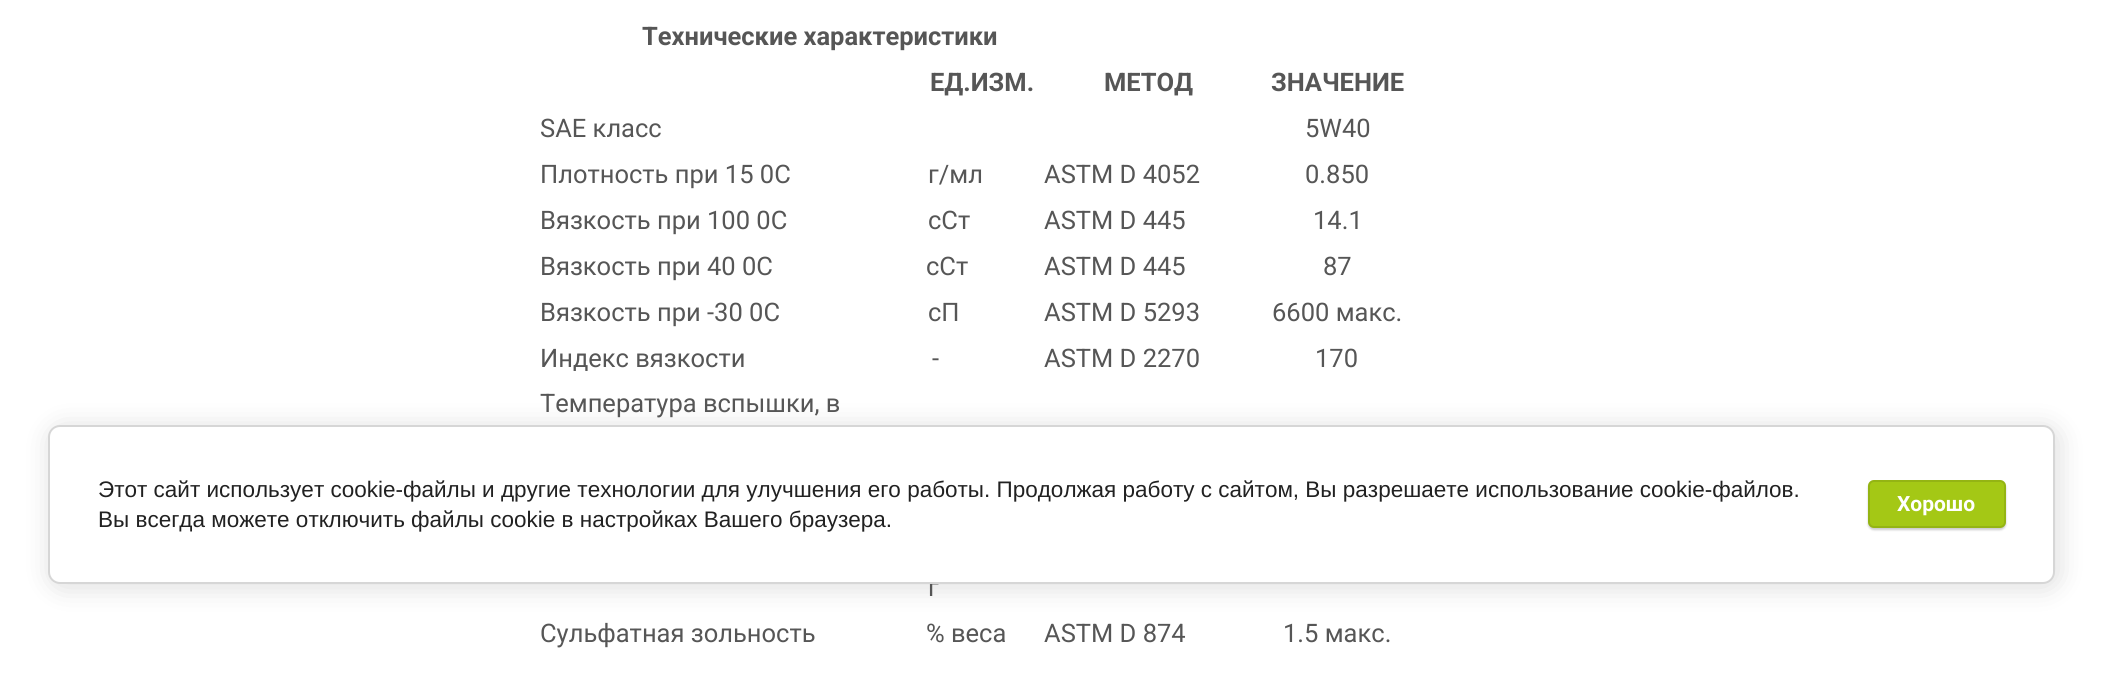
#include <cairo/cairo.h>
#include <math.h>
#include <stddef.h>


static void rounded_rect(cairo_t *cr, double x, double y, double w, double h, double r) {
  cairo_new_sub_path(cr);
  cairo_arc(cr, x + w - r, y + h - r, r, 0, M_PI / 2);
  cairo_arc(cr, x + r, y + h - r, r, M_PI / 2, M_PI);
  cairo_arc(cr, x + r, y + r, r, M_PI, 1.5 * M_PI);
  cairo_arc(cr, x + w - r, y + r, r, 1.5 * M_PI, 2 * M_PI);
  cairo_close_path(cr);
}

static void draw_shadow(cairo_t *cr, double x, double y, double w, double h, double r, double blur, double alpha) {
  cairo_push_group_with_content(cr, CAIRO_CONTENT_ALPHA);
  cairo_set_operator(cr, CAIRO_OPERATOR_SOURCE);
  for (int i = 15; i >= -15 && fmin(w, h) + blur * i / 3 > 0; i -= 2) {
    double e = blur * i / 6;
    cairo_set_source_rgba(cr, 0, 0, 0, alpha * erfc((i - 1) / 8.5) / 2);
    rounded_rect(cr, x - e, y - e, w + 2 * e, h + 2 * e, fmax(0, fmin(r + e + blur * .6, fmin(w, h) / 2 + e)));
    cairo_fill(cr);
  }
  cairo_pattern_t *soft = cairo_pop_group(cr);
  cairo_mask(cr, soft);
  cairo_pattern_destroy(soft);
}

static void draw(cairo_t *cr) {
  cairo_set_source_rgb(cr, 1, 1, 1);
  cairo_paint(cr);
  cairo_set_source_rgb(cr, 0, 0, 0);
  draw_shadow(cr, 51, 428, 2007, 159, 12, 13.5, 0.14);
  cairo_select_font_face(cr, "Roboto", CAIRO_FONT_SLANT_NORMAL, CAIRO_FONT_WEIGHT_BOLD);
  cairo_set_font_size(cr, 25.5);
  cairo_set_source_rgb(cr, 86 / 255.0, 86 / 255.0, 86 / 255.0);
  cairo_move_to(cr, 642, 45);
  cairo_show_text(cr, "Технические характеристики");
  cairo_move_to(cr, 930, 91);
  cairo_show_text(cr, "ЕД.ИЗМ.");
  cairo_move_to(cr, 1104, 91);
  cairo_show_text(cr, "МЕТОД");
  cairo_move_to(cr, 1271, 91);
  cairo_show_text(cr, "ЗНАЧЕНИЕ");
  cairo_select_font_face(cr, "Roboto", CAIRO_FONT_SLANT_NORMAL, CAIRO_FONT_WEIGHT_NORMAL);
  cairo_move_to(cr, 540, 137);
  cairo_show_text(cr, "SAE класс");
  cairo_move_to(cr, 1305, 137);
  cairo_show_text(cr, "5W40");
  cairo_move_to(cr, 540, 183);
  cairo_show_text(cr, "Плотность при 15 0С");
  cairo_move_to(cr, 928, 183);
  cairo_show_text(cr, "г/мл");
  cairo_move_to(cr, 1044, 183);
  cairo_show_text(cr, "ASTM D 4052");
  cairo_move_to(cr, 1305, 183);
  cairo_show_text(cr, "0.850");
  cairo_move_to(cr, 540, 229);
  cairo_show_text(cr, "Вязкость при 100 0С");
  cairo_move_to(cr, 928, 229);
  cairo_show_text(cr, "сСт");
  cairo_move_to(cr, 1044, 229);
  cairo_show_text(cr, "ASTM D 445");
  cairo_move_to(cr, 1313, 229);
  cairo_show_text(cr, "14.1");
  cairo_move_to(cr, 540, 275);
  cairo_show_text(cr, "Вязкость при 40 0С");
  cairo_move_to(cr, 926, 275);
  cairo_show_text(cr, "сСт");
  cairo_move_to(cr, 1044, 275);
  cairo_show_text(cr, "ASTM D 445");
  cairo_move_to(cr, 1323, 275);
  cairo_show_text(cr, "87");
  cairo_move_to(cr, 540, 321);
  cairo_show_text(cr, "Вязкость при -30 0С");
  cairo_move_to(cr, 928, 321);
  cairo_show_text(cr, "сП");
  cairo_move_to(cr, 1044, 321);
  cairo_show_text(cr, "ASTM D 5293");
  cairo_move_to(cr, 1272, 321);
  cairo_show_text(cr, "6600 макс.");
  cairo_move_to(cr, 540, 367);
  cairo_show_text(cr, "Индекс вязкости");
  cairo_move_to(cr, 932, 367);
  cairo_show_text(cr, "-");
  cairo_move_to(cr, 1044, 367);
  cairo_show_text(cr, "ASTM D 2270");
  cairo_move_to(cr, 1315, 367);
  cairo_show_text(cr, "170");
  cairo_move_to(cr, 540, 412);
  cairo_show_text(cr, "Температура вспышки, в");
  cairo_move_to(cr, 928, 596);
  cairo_show_text(cr, "г");
  cairo_move_to(cr, 540, 642);
  cairo_show_text(cr, "Сульфатная зольность");
  cairo_move_to(cr, 926, 642);
  cairo_show_text(cr, "% веса");
  cairo_move_to(cr, 1044, 642);
  cairo_show_text(cr, "ASTM D 874");
  cairo_move_to(cr, 1283, 642);
  cairo_show_text(cr, "1.5 макс.");
  cairo_set_source_rgb(cr, 1, 1, 1);
  rounded_rect(cr, 49, 426, 2005, 157, 11);
  cairo_fill_preserve(cr);
  cairo_set_source_rgb(cr, 214 / 255.0, 214 / 255.0, 214 / 255.0);
  cairo_stroke(cr);
  cairo_select_font_face(cr, "Liberation Sans", CAIRO_FONT_SLANT_NORMAL, CAIRO_FONT_WEIGHT_NORMAL);
  cairo_set_font_size(cr, 22.5);
  cairo_set_source_rgb(cr, 33 / 255.0, 33 / 255.0, 33 / 255.0);
  cairo_move_to(cr, 98, 497);
  cairo_show_text(cr, "Этот сайт использует cookie-файлы и другие технологии для улучшения его работы. Продолжая работу с сайтом, Вы разрешаете использование cookie-файлов.");
  cairo_move_to(cr, 98, 527);
  cairo_show_text(cr, "Вы всегда можете отключить файлы cookie в настройках Вашего браузера.");
  cairo_set_source_rgb(cr, 0, 0, 0);
  draw_shadow(cr, 1868, 482, 138, 48, 6, 1, 0.2);
  cairo_set_source_rgb(cr, 164 / 255.0, 200 / 255.0, 21 / 255.0);
  rounded_rect(cr, 1868, 480, 138, 48, 6);
  cairo_fill(cr);
  rounded_rect(cr, 1869, 481, 136, 46, 5);
  cairo_set_source_rgba(cr, 0, 0, 0, 0.1);
  cairo_stroke(cr);
  cairo_select_font_face(cr, "Roboto", CAIRO_FONT_SLANT_NORMAL, CAIRO_FONT_WEIGHT_BOLD);
  cairo_set_font_size(cr, 21);
  cairo_set_source_rgb(cr, 1, 1, 1);
  cairo_move_to(cr, 1897, 511);
  cairo_show_text(cr, "Хорошо");
}

int main(void) {
  cairo_surface_t *surface = cairo_image_surface_create(CAIRO_FORMAT_RGB24, 2103, 679);
  cairo_t *cr = cairo_create(surface);
  cairo_font_options_t *options = cairo_font_options_create();
  cairo_font_options_set_hint_metrics(options, CAIRO_HINT_METRICS_OFF);
  cairo_font_options_set_hint_style(options, CAIRO_HINT_STYLE_NONE);
  cairo_set_font_options(cr, options);
  cairo_set_miter_limit(cr, 4);
  draw(cr);
  cairo_surface_write_to_png(surface, "out.png");
  cairo_font_options_destroy(options);
  cairo_destroy(cr);
  cairo_surface_destroy(surface);
  return 0;
}
